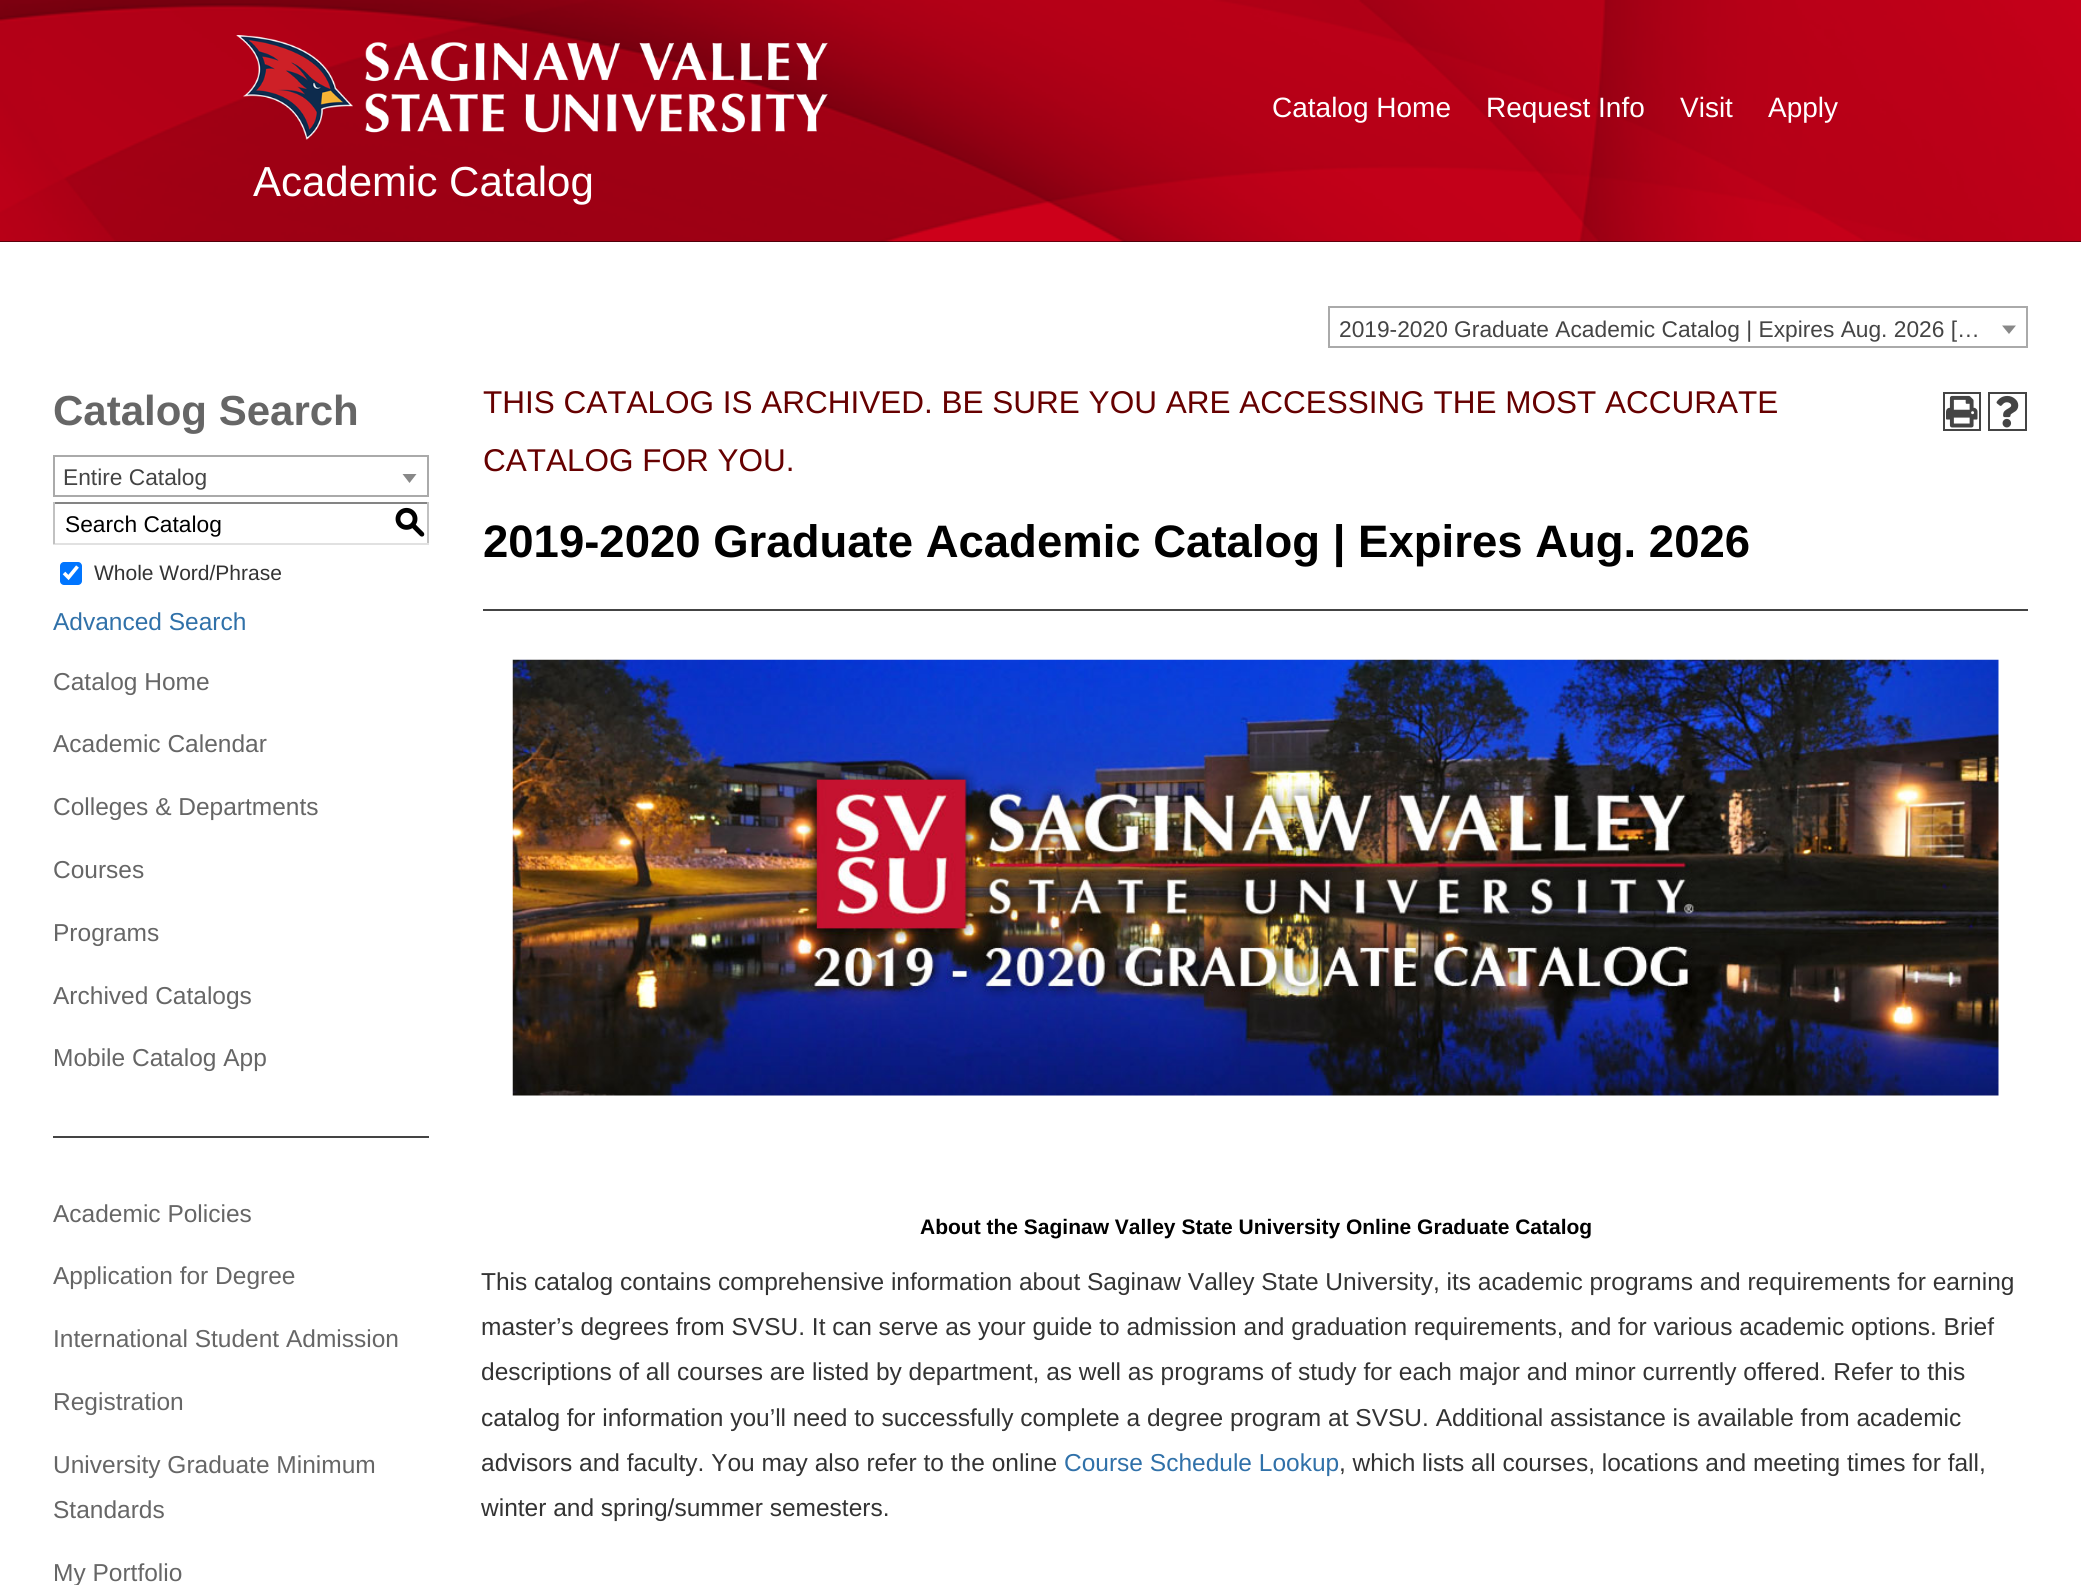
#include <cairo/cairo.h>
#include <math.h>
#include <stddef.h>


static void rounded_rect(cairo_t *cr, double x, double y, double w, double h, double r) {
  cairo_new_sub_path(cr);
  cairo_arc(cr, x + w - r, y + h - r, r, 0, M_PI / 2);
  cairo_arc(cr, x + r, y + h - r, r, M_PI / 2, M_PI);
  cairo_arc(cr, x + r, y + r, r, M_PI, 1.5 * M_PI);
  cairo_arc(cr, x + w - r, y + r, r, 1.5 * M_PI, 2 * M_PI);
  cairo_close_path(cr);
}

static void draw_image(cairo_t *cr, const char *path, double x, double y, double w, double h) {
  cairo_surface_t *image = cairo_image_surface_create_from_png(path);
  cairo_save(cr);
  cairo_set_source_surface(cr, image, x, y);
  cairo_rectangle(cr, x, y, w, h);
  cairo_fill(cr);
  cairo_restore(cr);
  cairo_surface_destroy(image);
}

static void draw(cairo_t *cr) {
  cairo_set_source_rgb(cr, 0, 0, 0);
  cairo_paint(cr);
  draw_image(cr, "images/1.png", 0, 0, 2081, 242);
  draw_image(cr, "images/2.png", 236, 35, 592, 105);
  cairo_set_source_rgb(cr, 1, 1, 1);
  cairo_rectangle(cr, 0, 242, 2081, 1343);
  cairo_fill(cr);
  cairo_rectangle(cr, 1329, 307, 698, 40);
  cairo_set_source_rgb(cr, 170 / 255.0, 170 / 255.0, 170 / 255.0);
  cairo_stroke(cr);
  cairo_set_source_rgb(cr, 136 / 255.0, 136 / 255.0, 136 / 255.0);
  cairo_new_path(cr);
  cairo_move_to(cr, 2002, 325.5);
  cairo_line_to(cr, 2016, 325.5);
  cairo_line_to(cr, 2009, 334);
  cairo_close_path(cr);
  cairo_fill(cr);
  cairo_rectangle(cr, 54, 456, 374, 40);
  cairo_set_source_rgb(cr, 170 / 255.0, 170 / 255.0, 170 / 255.0);
  cairo_stroke(cr);
  cairo_set_source_rgb(cr, 136 / 255.0, 136 / 255.0, 136 / 255.0);
  cairo_new_path(cr);
  cairo_move_to(cr, 402.5, 474);
  cairo_line_to(cr, 416.5, 474);
  cairo_line_to(cr, 409.5, 483);
  cairo_close_path(cr);
  cairo_fill(cr);
  cairo_set_source_rgb(cr, 132 / 255.0, 132 / 255.0, 132 / 255.0);
  cairo_rectangle(cr, 53, 502, 376, 2);
  cairo_fill(cr);
  cairo_set_source_rgb(cr, 193 / 255.0, 193 / 255.0, 193 / 255.0);
  cairo_rectangle(cr, 427, 502, 2, 42);
  cairo_fill(cr);
  cairo_set_source_rgb(cr, 225 / 255.0, 225 / 255.0, 225 / 255.0);
  cairo_rectangle(cr, 53, 543, 376, 2);
  cairo_fill(cr);
  cairo_set_source_rgb(cr, 193 / 255.0, 193 / 255.0, 193 / 255.0);
  cairo_rectangle(cr, 53, 502, 2, 42);
  cairo_fill(cr);
  cairo_set_source_rgb(cr, 0, 117 / 255.0, 1);
  rounded_rect(cr, 60, 562, 22, 23, 4);
  cairo_fill(cr);
  cairo_new_path(cr);
  cairo_move_to(cr, 64, 573);
  cairo_line_to(cr, 68.5, 577.5);
  cairo_line_to(cr, 77.5, 566.5);
  cairo_set_source_rgb(cr, 1, 1, 1);
  cairo_set_line_width(cr, 3.6);
  cairo_stroke(cr);
  cairo_set_source_rgb(cr, 68 / 255.0, 68 / 255.0, 68 / 255.0);
  cairo_rectangle(cr, 53, 1136, 376, 2);
  cairo_fill(cr);
  cairo_rectangle(cr, 1944, 393, 36, 37);
  cairo_set_line_width(cr, 2);
  cairo_stroke(cr);
  draw_image(cr, "images/3.png", 1946, 395, 32, 33);
  cairo_rectangle(cr, 1989, 393, 37, 37);
  cairo_stroke(cr);
  draw_image(cr, "images/4.png", 1996, 395, 23, 33);
  cairo_rectangle(cr, 483, 609, 1545, 2);
  cairo_fill(cr);
  draw_image(cr, "images/5.png", 512, 659, 1487, 437);
  cairo_select_font_face(cr, "Liberation Sans", CAIRO_FONT_SLANT_NORMAL, CAIRO_FONT_WEIGHT_NORMAL);
  cairo_set_font_size(cr, 28);
  cairo_set_source_rgb(cr, 1, 1, 1);
  cairo_move_to(cr, 1272, 117);
  cairo_show_text(cr, "Catalog Home");
  cairo_move_to(cr, 1486, 117);
  cairo_show_text(cr, "Request Info");
  cairo_move_to(cr, 1680, 117);
  cairo_show_text(cr, "Visit");
  cairo_move_to(cr, 1768, 117);
  cairo_show_text(cr, "Apply");
  cairo_set_font_size(cr, 42);
  cairo_move_to(cr, 253, 196);
  cairo_show_text(cr, "Academic Catalog");
  cairo_set_font_size(cr, 22.75);
  cairo_set_source_rgb(cr, 68 / 255.0, 68 / 255.0, 68 / 255.0);
  cairo_move_to(cr, 1339, 337);
  cairo_show_text(cr, "2019-2020 Graduate Academic Catalog | Expires Aug. 2026 […");
  cairo_select_font_face(cr, "Liberation Sans", CAIRO_FONT_SLANT_NORMAL, CAIRO_FONT_WEIGHT_BOLD);
  cairo_set_font_size(cr, 42);
  cairo_set_source_rgb(cr, 102 / 255.0, 102 / 255.0, 102 / 255.0);
  cairo_move_to(cr, 53, 425);
  cairo_show_text(cr, "Catalog Search");
  cairo_select_font_face(cr, "Liberation Sans", CAIRO_FONT_SLANT_NORMAL, CAIRO_FONT_WEIGHT_NORMAL);
  cairo_set_font_size(cr, 22.75);
  cairo_set_source_rgb(cr, 68 / 255.0, 68 / 255.0, 68 / 255.0);
  cairo_move_to(cr, 63, 485);
  cairo_show_text(cr, "Entire Catalog");
  cairo_set_source_rgb(cr, 0, 0, 0);
  cairo_move_to(cr, 65, 532);
  cairo_show_text(cr, "Search Catalog");
  cairo_select_font_face(cr, "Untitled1 Medium", CAIRO_FONT_SLANT_NORMAL, CAIRO_FONT_WEIGHT_NORMAL);
  cairo_set_font_size(cr, 31.5);
  cairo_move_to(cr, 394, 532);
  cairo_show_text(cr, "S");
  cairo_select_font_face(cr, "Liberation Sans", CAIRO_FONT_SLANT_NORMAL, CAIRO_FONT_WEIGHT_NORMAL);
  cairo_set_font_size(cr, 21);
  cairo_set_source_rgb(cr, 51 / 255.0, 51 / 255.0, 51 / 255.0);
  cairo_move_to(cr, 94, 580);
  cairo_show_text(cr, "Whole Word/Phrase");
  cairo_set_font_size(cr, 24.5);
  cairo_set_source_rgb(cr, 48 / 255.0, 113 / 255.0, 169 / 255.0);
  cairo_move_to(cr, 53, 630);
  cairo_show_text(cr, "Advanced Search");
  cairo_set_source_rgb(cr, 102 / 255.0, 102 / 255.0, 102 / 255.0);
  cairo_move_to(cr, 53, 690);
  cairo_show_text(cr, "Catalog Home");
  cairo_move_to(cr, 53, 752);
  cairo_show_text(cr, "Academic Calendar");
  cairo_move_to(cr, 53, 815);
  cairo_show_text(cr, "Colleges & Departments");
  cairo_move_to(cr, 53, 878);
  cairo_show_text(cr, "Courses");
  cairo_move_to(cr, 53, 941);
  cairo_show_text(cr, "Programs");
  cairo_move_to(cr, 53, 1004);
  cairo_show_text(cr, "Archived Catalogs");
  cairo_move_to(cr, 53, 1066);
  cairo_show_text(cr, "Mobile Catalog App");
  cairo_move_to(cr, 53, 1222);
  cairo_show_text(cr, "Academic Policies");
  cairo_move_to(cr, 53, 1284);
  cairo_show_text(cr, "Application for Degree");
  cairo_move_to(cr, 53, 1347);
  cairo_show_text(cr, "International Student Admission");
  cairo_move_to(cr, 53, 1410);
  cairo_show_text(cr, "Registration");
  cairo_move_to(cr, 53, 1473);
  cairo_show_text(cr, "University Graduate Minimum");
  cairo_move_to(cr, 53, 1518);
  cairo_show_text(cr, "Standards");
  cairo_move_to(cr, 53, 1581);
  cairo_show_text(cr, "My Portfolio");
  cairo_set_font_size(cr, 31.5);
  cairo_set_source_rgb(cr, 102 / 255.0, 0, 0);
  cairo_move_to(cr, 483, 413);
  cairo_show_text(cr, "THIS CATALOG IS ARCHIVED. BE SURE YOU ARE ACCESSING THE MOST ACCURATE");
  cairo_move_to(cr, 483, 471);
  cairo_show_text(cr, "CATALOG FOR YOU.");
  cairo_select_font_face(cr, "Liberation Sans", CAIRO_FONT_SLANT_NORMAL, CAIRO_FONT_WEIGHT_BOLD);
  cairo_set_font_size(cr, 45.5);
  cairo_set_source_rgb(cr, 0, 0, 0);
  cairo_move_to(cr, 483, 557);
  cairo_show_text(cr, "2019-2020 Graduate Academic Catalog | Expires Aug. 2026");
  cairo_set_font_size(cr, 21);
  cairo_move_to(cr, 920, 1234);
  cairo_show_text(cr, "About the Saginaw Valley State University Online Graduate Catalog");
  cairo_select_font_face(cr, "Liberation Sans", CAIRO_FONT_SLANT_NORMAL, CAIRO_FONT_WEIGHT_NORMAL);
  cairo_set_font_size(cr, 24.5);
  cairo_set_source_rgb(cr, 51 / 255.0, 51 / 255.0, 51 / 255.0);
  cairo_move_to(cr, 481, 1290);
  cairo_show_text(cr, "This catalog contains comprehensive information about Saginaw Valley State University, its academic programs and requirements for earning");
  cairo_move_to(cr, 481, 1335);
  cairo_show_text(cr, "master’s degrees from SVSU. It can serve as your guide to admission and graduation requirements, and for various academic options. Brief");
  cairo_move_to(cr, 481, 1380);
  cairo_show_text(cr, "descriptions of all courses are listed by department, as well as programs of study for each major and minor currently offered. Refer to this");
  cairo_move_to(cr, 481, 1426);
  cairo_show_text(cr, "catalog for information you’ll need to successfully complete a degree program at SVSU. Additional assistance is available from academic");
  cairo_move_to(cr, 481, 1471);
  cairo_show_text(cr, "advisors and faculty. You may also refer to the online");
  cairo_set_source_rgb(cr, 48 / 255.0, 113 / 255.0, 169 / 255.0);
  cairo_move_to(cr, 1064, 1471);
  cairo_show_text(cr, "Course Schedule Lookup");
  cairo_set_source_rgb(cr, 51 / 255.0, 51 / 255.0, 51 / 255.0);
  cairo_move_to(cr, 1339, 1471);
  cairo_show_text(cr, ", which lists all courses, locations and meeting times for fall,");
  cairo_move_to(cr, 481, 1516);
  cairo_show_text(cr, "winter and spring/summer semesters.");
}

int main(void) {
  cairo_surface_t *surface = cairo_image_surface_create(CAIRO_FORMAT_RGB24, 2081, 1585);
  cairo_t *cr = cairo_create(surface);
  cairo_font_options_t *options = cairo_font_options_create();
  cairo_font_options_set_hint_metrics(options, CAIRO_HINT_METRICS_OFF);
  cairo_font_options_set_hint_style(options, CAIRO_HINT_STYLE_NONE);
  cairo_set_font_options(cr, options);
  cairo_set_miter_limit(cr, 4);
  draw(cr);
  cairo_surface_write_to_png(surface, "out.png");
  cairo_font_options_destroy(options);
  cairo_destroy(cr);
  cairo_surface_destroy(surface);
  return 0;
}
